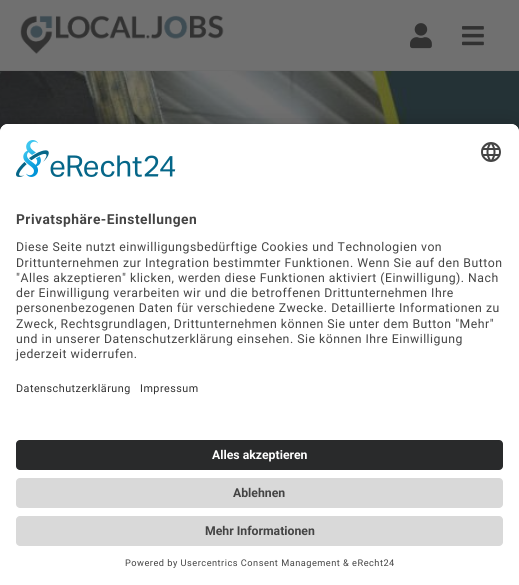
#include <cairo/cairo.h>
#include <math.h>
#include <stddef.h>


static void draw_spaced(cairo_t *cr, double x, double y, const char *s, double letter, double word) {
  cairo_move_to(cr, x, y);
  while (*s) {
    char ch[5] = {0};
    int n = 0;
    do ch[n++] = *s++; while ((*s & 0xC0) == 0x80);
    cairo_show_text(cr, ch);
    cairo_rel_move_to(cr, letter + word * (*ch == ' '), 0);
  }
}

static void rounded_rect(cairo_t *cr, double x, double y, double w, double h, double r) {
  cairo_new_sub_path(cr);
  cairo_arc(cr, x + w - r, y + h - r, r, 0, M_PI / 2);
  cairo_arc(cr, x + r, y + h - r, r, M_PI / 2, M_PI);
  cairo_arc(cr, x + r, y + r, r, M_PI, 1.5 * M_PI);
  cairo_arc(cr, x + w - r, y + r, r, 1.5 * M_PI, 2 * M_PI);
  cairo_close_path(cr);
}

static void draw_shadow(cairo_t *cr, double x, double y, double w, double h, double r, double blur, double alpha) {
  cairo_push_group_with_content(cr, CAIRO_CONTENT_ALPHA);
  cairo_set_operator(cr, CAIRO_OPERATOR_SOURCE);
  for (int i = 15; i >= -15 && fmin(w, h) + blur * i / 3 > 0; i -= 2) {
    double e = blur * i / 6;
    cairo_set_source_rgba(cr, 0, 0, 0, alpha * erfc((i - 1) / 8.5) / 2);
    rounded_rect(cr, x - e, y - e, w + 2 * e, h + 2 * e, fmax(0, fmin(r + e + blur * .6, fmin(w, h) / 2 + e)));
    cairo_fill(cr);
  }
  cairo_pattern_t *soft = cairo_pop_group(cr);
  cairo_mask(cr, soft);
  cairo_pattern_destroy(soft);
}

static void draw_image(cairo_t *cr, const char *path, double x, double y, double w, double h) {
  cairo_surface_t *image = cairo_image_surface_create_from_png(path);
  cairo_save(cr);
  cairo_set_source_surface(cr, image, x, y);
  cairo_rectangle(cr, x, y, w, h);
  cairo_fill(cr);
  cairo_restore(cr);
  cairo_surface_destroy(image);
}

static void draw(cairo_t *cr) {
  cairo_set_source_rgb(cr, 112 / 255.0, 112 / 255.0, 112 / 255.0);
  cairo_paint(cr);
  cairo_set_source_rgb(cr, 108 / 255.0, 108 / 255.0, 108 / 255.0);
  cairo_rectangle(cr, 0, 70, 519, 1);
  cairo_fill(cr);
  draw_image(cr, "images/1.png", 20, 15, 204, 39);
  draw_image(cr, "images/2.png", 410, 23, 22, 26);
  draw_image(cr, "images/3.png", 462, 26, 22, 20);
  draw_image(cr, "images/4.png", 0, 71, 519, 61);
  cairo_set_source_rgb(cr, 0, 0, 0);
  draw_shadow(cr, 0, 144, 519, 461, 8, 14, 0.3);
  draw_shadow(cr, 0, 129, 519, 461, 8, 13, 0.22);
  cairo_set_source_rgb(cr, 1, 1, 1);
  cairo_new_path(cr);
  cairo_move_to(cr, 8, 124);
  cairo_line_to(cr, 511, 124);
  cairo_curve_to(cr, 515.5, 124, 519, 127.5, 519, 132);
  cairo_line_to(cr, 519, 585);
  cairo_line_to(cr, 0, 585);
  cairo_line_to(cr, 0, 132);
  cairo_curve_to(cr, 0, 127.5, 3.5, 124, 8, 124);
  cairo_close_path(cr);
  cairo_fill(cr);
  cairo_new_path(cr);
  cairo_move_to(cr, 8, 124);
  cairo_line_to(cr, 511, 124);
  cairo_curve_to(cr, 515.5, 124, 519, 127.5, 519, 132);
  cairo_line_to(cr, 519, 428);
  cairo_line_to(cr, 0, 428);
  cairo_line_to(cr, 0, 132);
  cairo_curve_to(cr, 0, 127.5, 3.5, 124, 8, 124);
  cairo_close_path(cr);
  cairo_fill(cr);
  draw_image(cr, "images/5.png", 16, 140, 160, 37);
  draw_image(cr, "images/6.png", 481, 142, 20, 20);
  cairo_set_source_rgb(cr, 41 / 255.0, 42 / 255.0, 43 / 255.0);
  rounded_rect(cr, 16, 440, 487, 30, 4);
  cairo_fill(cr);
  cairo_set_source_rgb(cr, 217 / 255.0, 217 / 255.0, 217 / 255.0);
  rounded_rect(cr, 16, 478, 487, 30, 4);
  cairo_fill(cr);
  rounded_rect(cr, 16, 516, 487, 30, 4);
  cairo_fill(cr);
  cairo_select_font_face(cr, "Roboto", CAIRO_FONT_SLANT_NORMAL, CAIRO_FONT_WEIGHT_BOLD);
  cairo_set_font_size(cr, 13.75);
  cairo_set_source_rgb(cr, 68 / 255.0, 68 / 255.0, 68 / 255.0);
  draw_spaced(cr, 16, 224, "Privatsphäre-Einstellungen", 0.5, 0);
  cairo_select_font_face(cr, "Roboto", CAIRO_FONT_SLANT_NORMAL, CAIRO_FONT_WEIGHT_NORMAL);
  cairo_set_font_size(cr, 12.25);
  draw_spaced(cr, 16, 251, "Diese Seite nutzt einwilligungsbedürftige Cookies und Technologien von", 0.5, 0);
  draw_spaced(cr, 16, 267, "Drittunternehmen zur Integration bestimmter Funktionen. Wenn Sie auf den Button", 0.5, 0);
  draw_spaced(cr, 16, 282, "\"Alles akzeptieren\" klicken, werden diese Funktionen aktiviert (Einwilligung). Nach", 0.5, 0);
  draw_spaced(cr, 16, 297, "der Einwilligung verarbeiten wir und die betroffenen Drittunternehmen Ihre", 0.5, 0);
  draw_spaced(cr, 16, 312, "personenbezogenen Daten für verschiedene Zwecke. Detaillierte Informationen zu", 0.5, 0);
  draw_spaced(cr, 16, 328, "Zweck, Rechtsgrundlagen, Drittunternehmen können Sie unter dem Button \"Mehr\"", 0.5, 0);
  draw_spaced(cr, 16, 343, "und in unserer Datenschutzerklärung einsehen. Sie können Ihre Einwilligung", 0.5, 0);
  draw_spaced(cr, 16, 358, "jederzeit widerrufen.", 0.5, 0);
  cairo_set_font_size(cr, 10.75);
  cairo_set_source_rgb(cr, 48 / 255.0, 48 / 255.0, 48 / 255.0);
  draw_spaced(cr, 16, 392, "Datenschutzerklärung", 0.5, 0);
  draw_spaced(cr, 140, 392, "Impressum", 0.5, 0);
  cairo_select_font_face(cr, "Roboto", CAIRO_FONT_SLANT_NORMAL, CAIRO_FONT_WEIGHT_BOLD);
  cairo_set_font_size(cr, 12.25);
  cairo_set_source_rgb(cr, 1, 1, 1);
  cairo_move_to(cr, 212, 459);
  cairo_show_text(cr, "Alles akzeptieren");
  cairo_set_source_rgb(cr, 68 / 255.0, 68 / 255.0, 68 / 255.0);
  cairo_move_to(cr, 233, 497);
  cairo_show_text(cr, "Ablehnen");
  cairo_move_to(cr, 205, 535);
  cairo_show_text(cr, "Mehr Informationen");
  cairo_select_font_face(cr, "Roboto", CAIRO_FONT_SLANT_NORMAL, CAIRO_FONT_WEIGHT_NORMAL);
  cairo_set_font_size(cr, 9.2);
  draw_spaced(cr, 125, 566, "Powered by Usercentrics Consent Management & eRecht24", 0.5, 0);
}

int main(void) {
  cairo_surface_t *surface = cairo_image_surface_create(CAIRO_FORMAT_RGB24, 519, 585);
  cairo_t *cr = cairo_create(surface);
  cairo_font_options_t *options = cairo_font_options_create();
  cairo_font_options_set_hint_metrics(options, CAIRO_HINT_METRICS_OFF);
  cairo_font_options_set_hint_style(options, CAIRO_HINT_STYLE_NONE);
  cairo_set_font_options(cr, options);
  cairo_set_miter_limit(cr, 4);
  draw(cr);
  cairo_surface_write_to_png(surface, "out.png");
  cairo_font_options_destroy(options);
  cairo_destroy(cr);
  cairo_surface_destroy(surface);
  return 0;
}
